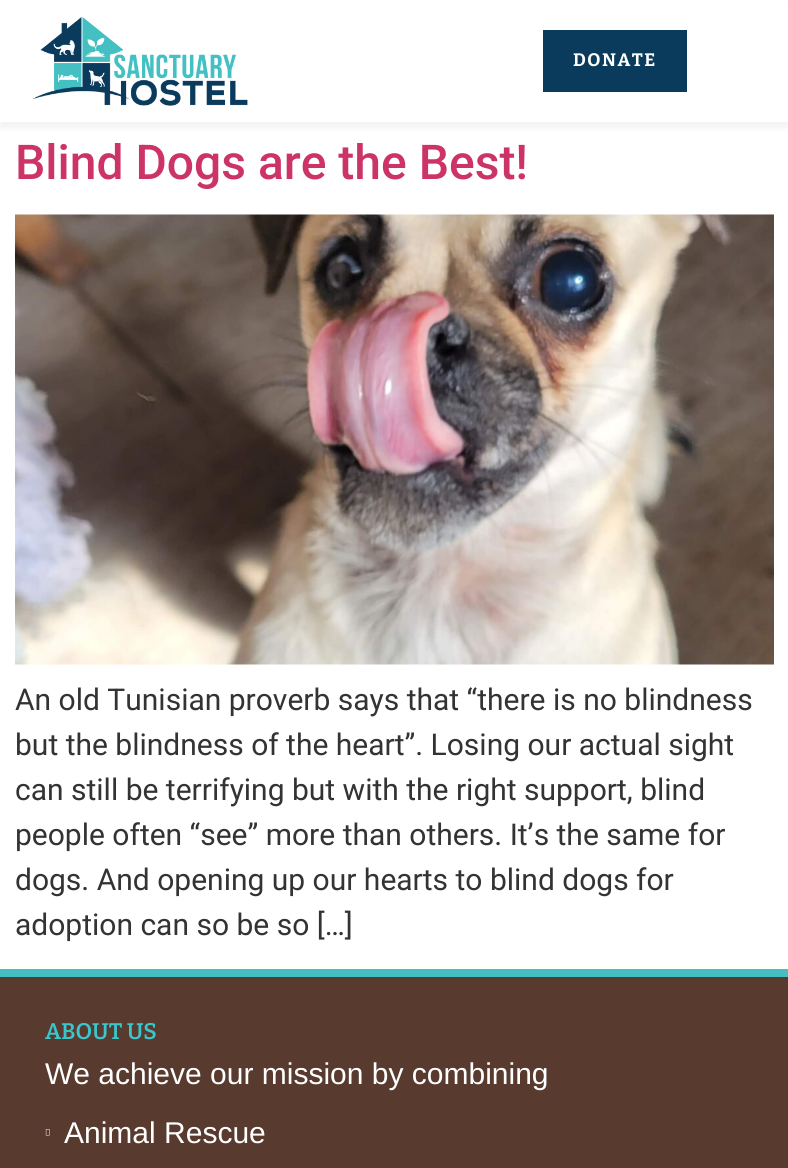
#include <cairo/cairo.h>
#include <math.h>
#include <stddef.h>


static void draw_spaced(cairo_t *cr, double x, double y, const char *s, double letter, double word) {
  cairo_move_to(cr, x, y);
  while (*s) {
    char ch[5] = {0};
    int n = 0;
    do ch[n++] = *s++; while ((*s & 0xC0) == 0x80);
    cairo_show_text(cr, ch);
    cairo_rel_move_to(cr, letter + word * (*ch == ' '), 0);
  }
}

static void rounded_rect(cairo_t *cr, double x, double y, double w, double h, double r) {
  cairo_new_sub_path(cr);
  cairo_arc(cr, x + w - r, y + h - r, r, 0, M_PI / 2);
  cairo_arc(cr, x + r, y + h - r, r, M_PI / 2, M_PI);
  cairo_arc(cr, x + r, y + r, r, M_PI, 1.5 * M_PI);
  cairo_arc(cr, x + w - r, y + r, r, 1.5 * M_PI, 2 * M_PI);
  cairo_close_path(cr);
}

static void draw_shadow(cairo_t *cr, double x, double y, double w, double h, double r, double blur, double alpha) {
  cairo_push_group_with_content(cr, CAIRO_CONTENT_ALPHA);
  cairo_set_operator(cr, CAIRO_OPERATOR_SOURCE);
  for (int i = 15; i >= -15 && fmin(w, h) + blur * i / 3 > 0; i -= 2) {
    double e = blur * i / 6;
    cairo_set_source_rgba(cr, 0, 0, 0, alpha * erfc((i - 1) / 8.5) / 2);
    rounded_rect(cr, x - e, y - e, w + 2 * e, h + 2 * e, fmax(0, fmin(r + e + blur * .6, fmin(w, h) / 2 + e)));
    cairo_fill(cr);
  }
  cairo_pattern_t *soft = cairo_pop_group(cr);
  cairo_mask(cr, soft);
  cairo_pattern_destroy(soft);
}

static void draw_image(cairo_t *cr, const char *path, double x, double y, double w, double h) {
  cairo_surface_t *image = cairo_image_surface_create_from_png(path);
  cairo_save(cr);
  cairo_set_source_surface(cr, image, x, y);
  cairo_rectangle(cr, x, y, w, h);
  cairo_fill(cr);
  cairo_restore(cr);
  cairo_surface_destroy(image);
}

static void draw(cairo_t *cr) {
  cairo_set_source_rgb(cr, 1, 1, 1);
  cairo_paint(cr);
  cairo_set_source_rgb(cr, 0, 0, 0);
  draw_shadow(cr, 0, 6, 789, 122, 0, 3, 0.05);
  cairo_set_source_rgb(cr, 1, 1, 1);
  cairo_rectangle(cr, 0, 3, 788, 119);
  cairo_fill(cr);
  draw_image(cr, "images/1.png", 32, 17, 216, 89);
  cairo_set_source_rgb(cr, 10 / 255.0, 59 / 255.0, 93 / 255.0);
  cairo_rectangle(cr, 543, 30, 144, 62);
  cairo_fill(cr);
  draw_image(cr, "images/2.png", 15, 214, 759, 451);
  cairo_set_source_rgb(cr, 88 / 255.0, 58 / 255.0, 47 / 255.0);
  cairo_rectangle(cr, 0, 977, 788, 191);
  cairo_fill(cr);
  cairo_set_source_rgb(cr, 68 / 255.0, 192 / 255.0, 194 / 255.0);
  cairo_rectangle(cr, 0, 969, 788, 8);
  cairo_fill(cr);
  draw_image(cr, "images/3.png", 45, 1129, 5, 7);
  cairo_select_font_face(cr, "Bitter", CAIRO_FONT_SLANT_NORMAL, CAIRO_FONT_WEIGHT_BOLD);
  cairo_set_font_size(cr, 18);
  cairo_set_source_rgb(cr, 1, 1, 1);
  draw_spaced(cr, 573, 66, "DONATE", 1.5, 0);
  cairo_select_font_face(cr, "Roboto Medium", CAIRO_FONT_SLANT_NORMAL, CAIRO_FONT_WEIGHT_NORMAL);
  cairo_set_font_size(cr, 48);
  cairo_set_source_rgb(cr, 204 / 255.0, 51 / 255.0, 102 / 255.0);
  cairo_move_to(cr, 15, 179);
  cairo_show_text(cr, "Blind Dogs are the Best!");
  cairo_select_font_face(cr, "Roboto", CAIRO_FONT_SLANT_NORMAL, CAIRO_FONT_WEIGHT_NORMAL);
  cairo_set_font_size(cr, 30);
  cairo_set_source_rgb(cr, 51 / 255.0, 51 / 255.0, 51 / 255.0);
  cairo_move_to(cr, 15, 710);
  cairo_show_text(cr, "An old Tunisian proverb says that “there is no blindness");
  cairo_move_to(cr, 15, 755);
  cairo_show_text(cr, "but the blindness of the heart”. Losing our actual sight");
  cairo_move_to(cr, 15, 800);
  cairo_show_text(cr, "can still be terrifying but with the right support, blind");
  cairo_move_to(cr, 15, 845);
  cairo_show_text(cr, "people often “see” more than others. It’s the same for");
  cairo_move_to(cr, 15, 890);
  cairo_show_text(cr, "dogs. And opening up our hearts to blind dogs for");
  cairo_move_to(cr, 15, 935);
  cairo_show_text(cr, "adoption can so be so […]");
  cairo_select_font_face(cr, "Bitter SemiBold", CAIRO_FONT_SLANT_NORMAL, CAIRO_FONT_WEIGHT_NORMAL);
  cairo_set_font_size(cr, 22.5);
  cairo_set_source_rgb(cr, 57 / 255.0, 199 / 255.0, 206 / 255.0);
  cairo_move_to(cr, 45, 1039);
  cairo_show_text(cr, "ABOUT US");
  cairo_select_font_face(cr, "Liberation Sans", CAIRO_FONT_SLANT_NORMAL, CAIRO_FONT_WEIGHT_NORMAL);
  cairo_set_font_size(cr, 30);
  cairo_set_source_rgb(cr, 1, 1, 1);
  cairo_move_to(cr, 45, 1084);
  cairo_show_text(cr, "We achieve our mission by combining");
  cairo_move_to(cr, 64, 1143);
  cairo_show_text(cr, "Animal Rescue");
}

int main(void) {
  cairo_surface_t *surface = cairo_image_surface_create(CAIRO_FORMAT_RGB24, 788, 1168);
  cairo_t *cr = cairo_create(surface);
  cairo_font_options_t *options = cairo_font_options_create();
  cairo_font_options_set_hint_metrics(options, CAIRO_HINT_METRICS_OFF);
  cairo_font_options_set_hint_style(options, CAIRO_HINT_STYLE_NONE);
  cairo_set_font_options(cr, options);
  cairo_set_miter_limit(cr, 4);
  draw(cr);
  cairo_surface_write_to_png(surface, "out.png");
  cairo_font_options_destroy(options);
  cairo_destroy(cr);
  cairo_surface_destroy(surface);
  return 0;
}
